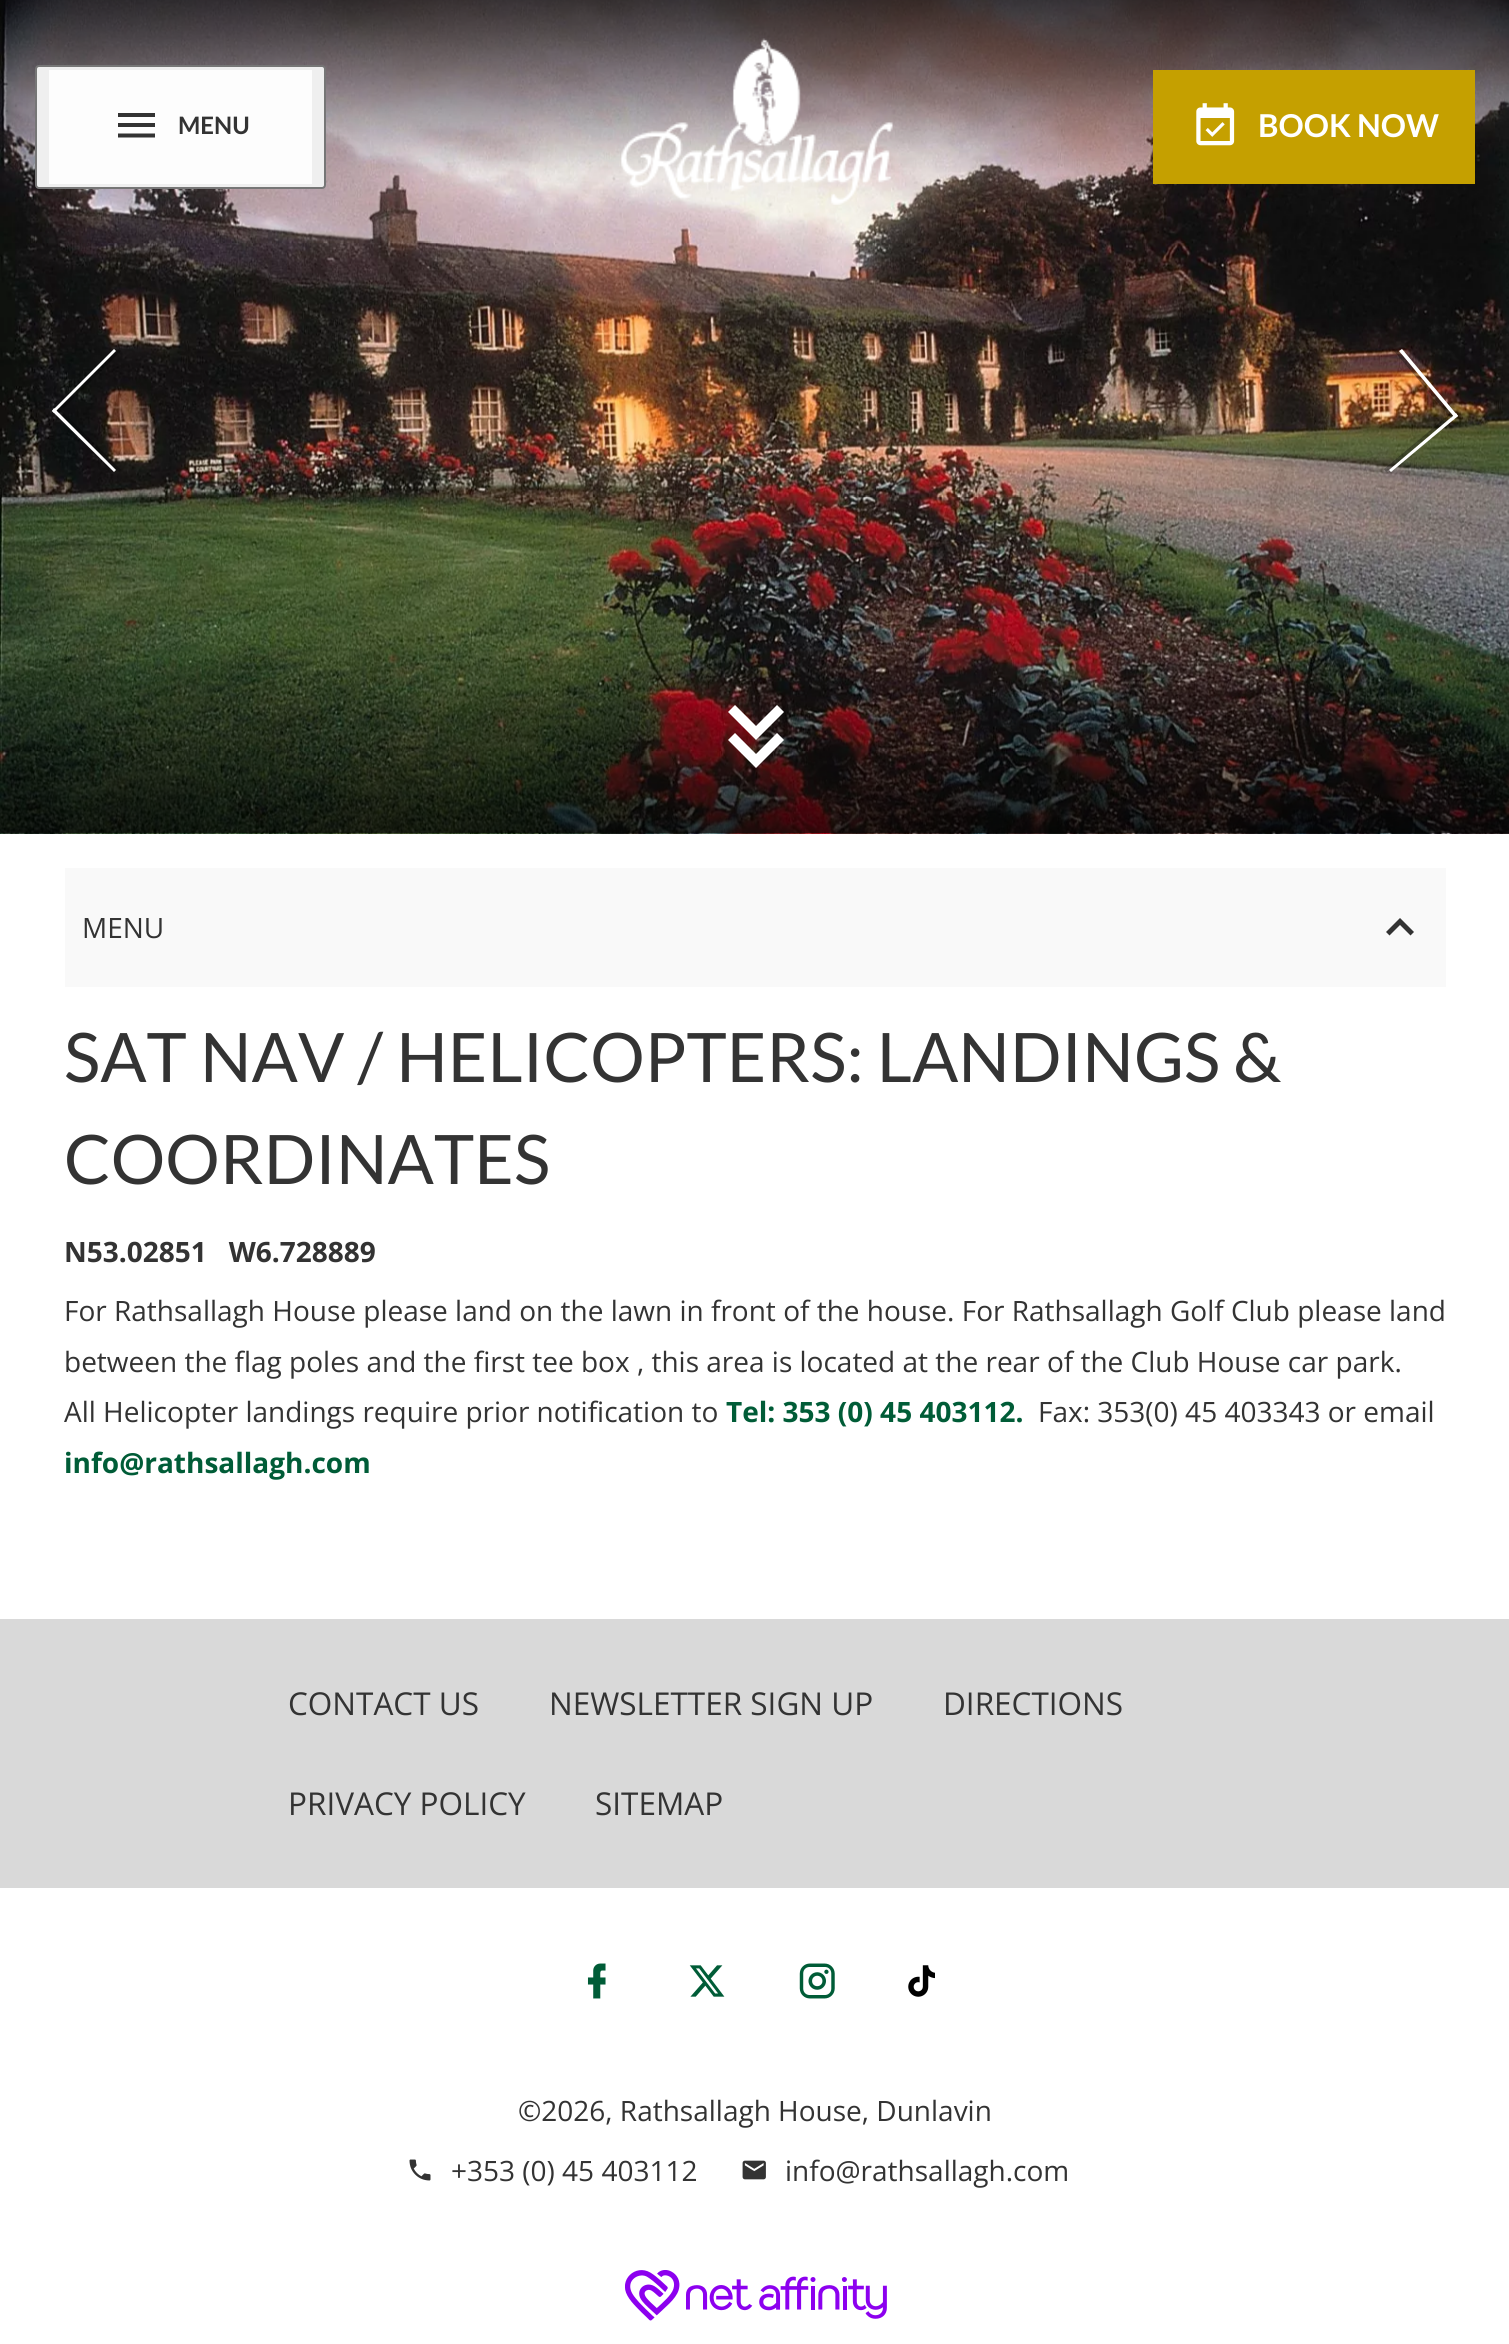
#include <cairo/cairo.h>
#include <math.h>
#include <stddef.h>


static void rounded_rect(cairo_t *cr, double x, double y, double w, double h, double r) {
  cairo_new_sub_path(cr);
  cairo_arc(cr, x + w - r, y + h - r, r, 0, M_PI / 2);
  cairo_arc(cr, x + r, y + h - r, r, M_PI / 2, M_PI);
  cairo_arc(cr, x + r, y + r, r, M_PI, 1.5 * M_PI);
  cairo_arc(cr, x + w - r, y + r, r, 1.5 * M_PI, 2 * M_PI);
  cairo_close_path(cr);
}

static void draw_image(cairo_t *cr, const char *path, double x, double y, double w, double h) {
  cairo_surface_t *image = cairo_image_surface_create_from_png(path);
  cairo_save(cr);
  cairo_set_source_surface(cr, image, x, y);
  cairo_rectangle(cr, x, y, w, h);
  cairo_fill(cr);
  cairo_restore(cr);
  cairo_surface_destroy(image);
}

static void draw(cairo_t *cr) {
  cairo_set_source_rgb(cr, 1, 1, 1);
  cairo_paint(cr);
  draw_image(cr, "images/1.png", 0, 0, 1509, 834);
  cairo_set_source_rgb(cr, 1, 1, 1);
  cairo_new_path(cr);
  cairo_move_to(cr, 52, 411);
  cairo_line_to(cr, 114, 349);
  cairo_line_to(cr, 116, 351);
  cairo_line_to(cr, 54, 413);
  cairo_close_path(cr);
  cairo_fill(cr);
  cairo_new_path(cr);
  cairo_move_to(cr, 52, 411);
  cairo_line_to(cr, 54, 408);
  cairo_line_to(cr, 116, 470);
  cairo_line_to(cr, 114, 472);
  cairo_close_path(cr);
  cairo_fill(cr);
  cairo_set_source_rgba(cr, 0, 0, 0, 0.3);
  cairo_new_path(cr);
  cairo_move_to(cr, 57, 411);
  cairo_line_to(cr, 119, 349);
  cairo_line_to(cr, 121, 351);
  cairo_line_to(cr, 59, 413);
  cairo_close_path(cr);
  cairo_fill(cr);
  cairo_new_path(cr);
  cairo_move_to(cr, 57, 411);
  cairo_line_to(cr, 59, 408);
  cairo_line_to(cr, 121, 470);
  cairo_line_to(cr, 119, 472);
  cairo_close_path(cr);
  cairo_fill(cr);
  cairo_set_source_rgb(cr, 1, 1, 1);
  cairo_new_path(cr);
  cairo_move_to(cr, 1458, 416);
  cairo_line_to(cr, 1391, 472);
  cairo_line_to(cr, 1389, 470);
  cairo_line_to(cr, 1456, 413);
  cairo_close_path(cr);
  cairo_fill(cr);
  cairo_new_path(cr);
  cairo_move_to(cr, 1458, 416);
  cairo_line_to(cr, 1455, 418);
  cairo_line_to(cr, 1399, 351);
  cairo_line_to(cr, 1402, 349);
  cairo_close_path(cr);
  cairo_fill(cr);
  cairo_set_source_rgba(cr, 0, 0, 0, 0.3);
  cairo_new_path(cr);
  cairo_move_to(cr, 1453, 416);
  cairo_line_to(cr, 1386, 472);
  cairo_line_to(cr, 1384, 469);
  cairo_line_to(cr, 1451, 413);
  cairo_close_path(cr);
  cairo_fill(cr);
  cairo_new_path(cr);
  cairo_move_to(cr, 1453, 416);
  cairo_line_to(cr, 1451, 418);
  cairo_line_to(cr, 1394, 351);
  cairo_line_to(cr, 1397, 349);
  cairo_close_path(cr);
  cairo_fill(cr);
  cairo_set_source_rgb(cr, 1, 1, 1);
  cairo_new_path(cr);
  cairo_move_to(cr, 777, 705);
  cairo_line_to(cr, 784, 712);
  cairo_line_to(cr, 756, 740);
  cairo_line_to(cr, 728, 712);
  cairo_line_to(cr, 735, 705);
  cairo_line_to(cr, 756, 726);
  cairo_close_path(cr);
  cairo_move_to(cr, 777, 733);
  cairo_line_to(cr, 784, 740);
  cairo_line_to(cr, 756, 768);
  cairo_line_to(cr, 728, 740);
  cairo_line_to(cr, 735, 733);
  cairo_line_to(cr, 756, 754);
  cairo_close_path(cr);
  cairo_fill(cr);
  cairo_set_source_rgb(cr, 239 / 255.0, 239 / 255.0, 239 / 255.0);
  rounded_rect(cr, 36, 66, 289, 122, 3);
  cairo_fill_preserve(cr);
  cairo_set_source_rgb(cr, 118 / 255.0, 118 / 255.0, 118 / 255.0);
  cairo_stroke(cr);
  cairo_set_source_rgb(cr, 253 / 255.0, 253 / 255.0, 253 / 255.0);
  cairo_rectangle(cr, 49, 70, 263, 114);
  cairo_fill(cr);
  cairo_set_source_rgb(cr, 51 / 255.0, 51 / 255.0, 51 / 255.0);
  cairo_new_path(cr);
  cairo_move_to(cr, 118, 113);
  cairo_line_to(cr, 155, 113);
  cairo_line_to(cr, 155, 117);
  cairo_line_to(cr, 118, 117);
  cairo_close_path(cr);
  cairo_move_to(cr, 118, 123);
  cairo_line_to(cr, 155, 123);
  cairo_line_to(cr, 155, 127);
  cairo_line_to(cr, 118, 127);
  cairo_close_path(cr);
  cairo_move_to(cr, 118, 133.5);
  cairo_line_to(cr, 155, 133.5);
  cairo_line_to(cr, 155, 137.5);
  cairo_line_to(cr, 118, 137.5);
  cairo_close_path(cr);
  cairo_fill(cr);
  draw_image(cr, "images/2.png", 621, 38, 272, 167);
  cairo_set_source_rgb(cr, 197 / 255.0, 160 / 255.0, 0);
  cairo_rectangle(cr, 1153, 70, 322, 114);
  cairo_fill(cr);
  draw_image(cr, "images/3.png", 1196, 103, 39, 43);
  cairo_set_source_rgb(cr, 249 / 255.0, 249 / 255.0, 249 / 255.0);
  cairo_rectangle(cr, 65, 868, 1381, 119);
  cairo_fill(cr);
  cairo_set_source_rgb(cr, 51 / 255.0, 51 / 255.0, 51 / 255.0);
  cairo_new_path(cr);
  cairo_move_to(cr, 1389.5, 935.5);
  cairo_line_to(cr, 1400, 925);
  cairo_line_to(cr, 1410.5, 935.5);
  cairo_line_to(cr, 1414, 932);
  cairo_line_to(cr, 1400, 918);
  cairo_line_to(cr, 1386, 932);
  cairo_close_path(cr);
  cairo_fill(cr);
  cairo_set_source_rgb(cr, 217 / 255.0, 217 / 255.0, 217 / 255.0);
  cairo_rectangle(cr, 0, 1619, 1509, 269);
  cairo_fill(cr);
  draw_image(cr, "images/4.png", 587, 1963, 19, 36);
  draw_image(cr, "images/5.png", 689, 1965, 36, 32);
  draw_image(cr, "images/6.png", 799, 1963, 36, 36);
  draw_image(cr, "images/7.png", 908, 1965, 27, 32);
  draw_image(cr, "images/8.png", 409, 2159, 22, 22);
  draw_image(cr, "images/9.png", 742, 2160, 24, 20);
  draw_image(cr, "images/10.png", 625, 2270, 262, 51);
  cairo_select_font_face(cr, "Lato", CAIRO_FONT_SLANT_NORMAL, CAIRO_FONT_WEIGHT_BOLD);
  cairo_set_font_size(cr, 24);
  cairo_set_source_rgb(cr, 51 / 255.0, 51 / 255.0, 51 / 255.0);
  cairo_move_to(cr, 178, 134);
  cairo_show_text(cr, "MENU");
  cairo_set_font_size(cr, 31.5);
  cairo_set_source_rgb(cr, 1, 1, 1);
  cairo_move_to(cr, 1258, 137);
  cairo_show_text(cr, "BOOK NOW");
  cairo_select_font_face(cr, "Open Sans", CAIRO_FONT_SLANT_NORMAL, CAIRO_FONT_WEIGHT_NORMAL);
  cairo_set_font_size(cr, 28);
  cairo_set_source_rgb(cr, 51 / 255.0, 51 / 255.0, 51 / 255.0);
  cairo_move_to(cr, 82, 938);
  cairo_show_text(cr, "MENU");
  cairo_select_font_face(cr, "Lato", CAIRO_FONT_SLANT_NORMAL, CAIRO_FONT_WEIGHT_NORMAL);
  cairo_set_font_size(cr, 68.25);
  cairo_move_to(cr, 64, 1082);
  cairo_show_text(cr, "SAT NAV / HELICOPTERS: LANDINGS &");
  cairo_move_to(cr, 64, 1184);
  cairo_show_text(cr, "COORDINATES");
  cairo_select_font_face(cr, "Open Sans", CAIRO_FONT_SLANT_NORMAL, CAIRO_FONT_WEIGHT_BOLD);
  cairo_set_font_size(cr, 28);
  cairo_move_to(cr, 64, 1262);
  cairo_show_text(cr, "N53.02851   W6.728889");
  cairo_select_font_face(cr, "Open Sans", CAIRO_FONT_SLANT_NORMAL, CAIRO_FONT_WEIGHT_NORMAL);
  cairo_move_to(cr, 64, 1321);
  cairo_show_text(cr, "For Rathsallagh House please land on the lawn in front of the house. For Rathsallagh Golf Club please land");
  cairo_move_to(cr, 64, 1372);
  cairo_show_text(cr, "between the flag poles and the first tee box , this area is located at the rear of the Club House car park.");
  cairo_move_to(cr, 64, 1422);
  cairo_show_text(cr, "All Helicopter landings require prior notification to");
  cairo_select_font_face(cr, "Open Sans", CAIRO_FONT_SLANT_NORMAL, CAIRO_FONT_WEIGHT_BOLD);
  cairo_set_source_rgb(cr, 0, 92 / 255.0, 55 / 255.0);
  cairo_move_to(cr, 726, 1422);
  cairo_show_text(cr, "Tel: 353 (0) 45 403112.");
  cairo_select_font_face(cr, "Open Sans", CAIRO_FONT_SLANT_NORMAL, CAIRO_FONT_WEIGHT_NORMAL);
  cairo_set_source_rgb(cr, 51 / 255.0, 51 / 255.0, 51 / 255.0);
  cairo_move_to(cr, 1038, 1422);
  cairo_show_text(cr, "Fax: 353(0) 45 403343 or email");
  cairo_select_font_face(cr, "Open Sans", CAIRO_FONT_SLANT_NORMAL, CAIRO_FONT_WEIGHT_BOLD);
  cairo_set_source_rgb(cr, 0, 92 / 255.0, 55 / 255.0);
  cairo_move_to(cr, 64, 1473);
  cairo_show_text(cr, "info@rathsallagh.com");
  cairo_select_font_face(cr, "Open Sans", CAIRO_FONT_SLANT_NORMAL, CAIRO_FONT_WEIGHT_NORMAL);
  cairo_set_font_size(cr, 31.5);
  cairo_set_source_rgb(cr, 51 / 255.0, 51 / 255.0, 51 / 255.0);
  cairo_move_to(cr, 288, 1715);
  cairo_show_text(cr, "CONTACT US");
  cairo_move_to(cr, 549, 1715);
  cairo_show_text(cr, "NEWSLETTER SIGN UP");
  cairo_move_to(cr, 943, 1715);
  cairo_show_text(cr, "DIRECTIONS");
  cairo_move_to(cr, 288, 1815);
  cairo_show_text(cr, "PRIVACY POLICY");
  cairo_move_to(cr, 595, 1815);
  cairo_show_text(cr, "SITEMAP");
  cairo_set_font_size(cr, 28);
  cairo_move_to(cr, 518, 2121);
  cairo_show_text(cr, "©2026, Rathsallagh House, Dunlavin");
  cairo_move_to(cr, 451, 2181);
  cairo_show_text(cr, "+353 (0) 45 403112");
  cairo_move_to(cr, 785, 2181);
  cairo_show_text(cr, "info@rathsallagh.com");
}

int main(void) {
  cairo_surface_t *surface = cairo_image_surface_create(CAIRO_FORMAT_RGB24, 1509, 2344);
  cairo_t *cr = cairo_create(surface);
  cairo_font_options_t *options = cairo_font_options_create();
  cairo_font_options_set_hint_metrics(options, CAIRO_HINT_METRICS_OFF);
  cairo_font_options_set_hint_style(options, CAIRO_HINT_STYLE_NONE);
  cairo_set_font_options(cr, options);
  cairo_set_miter_limit(cr, 4);
  draw(cr);
  cairo_surface_write_to_png(surface, "out.png");
  cairo_font_options_destroy(options);
  cairo_destroy(cr);
  cairo_surface_destroy(surface);
  return 0;
}
